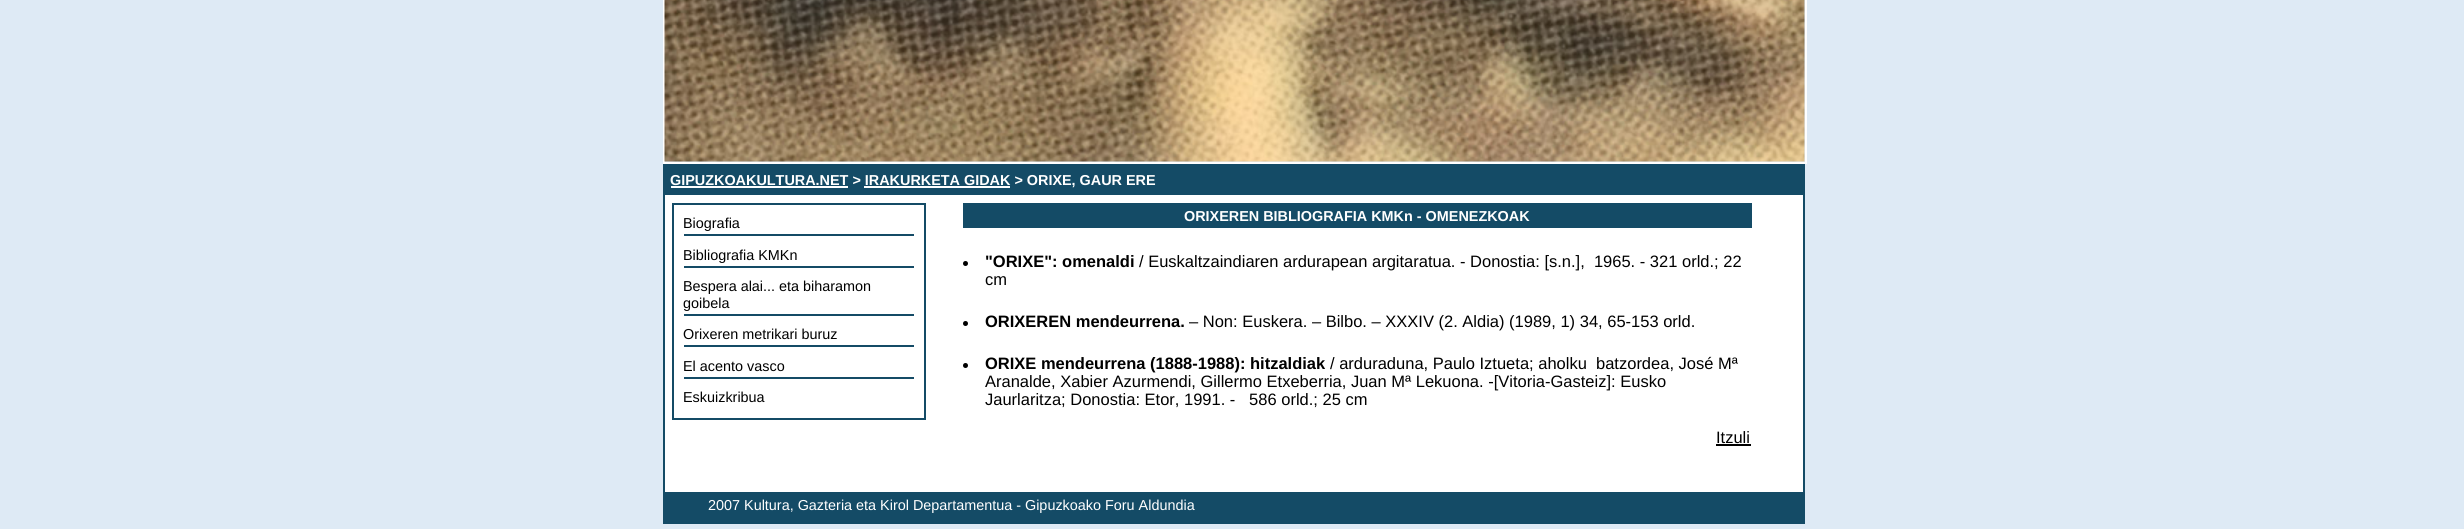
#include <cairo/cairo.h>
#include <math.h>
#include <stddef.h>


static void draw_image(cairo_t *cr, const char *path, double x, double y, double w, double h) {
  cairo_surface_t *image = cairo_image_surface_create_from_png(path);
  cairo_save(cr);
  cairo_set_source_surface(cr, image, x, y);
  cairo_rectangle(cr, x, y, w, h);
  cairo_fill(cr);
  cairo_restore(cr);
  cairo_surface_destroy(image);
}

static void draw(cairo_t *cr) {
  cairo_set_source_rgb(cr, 222 / 255.0, 234 / 255.0, 245 / 255.0);
  cairo_paint(cr);
  cairo_set_source_rgb(cr, 1, 1, 1);
  cairo_rectangle(cr, 1805, 0, 2, 164);
  cairo_fill(cr);
  cairo_rectangle(cr, 663, 162, 1143, 2);
  cairo_fill(cr);
  cairo_rectangle(cr, 663, 0, 2, 164);
  cairo_fill(cr);
  draw_image(cr, "images/1.png", 664, 0, 1141, 162);
  cairo_set_source_rgb(cr, 20 / 255.0, 75 / 255.0, 102 / 255.0);
  cairo_rectangle(cr, 663, 164, 1142, 31);
  cairo_fill(cr);
  cairo_set_source_rgb(cr, 1, 1, 1);
  cairo_rectangle(cr, 671, 186, 177, 2);
  cairo_fill(cr);
  cairo_rectangle(cr, 864, 186, 146, 2);
  cairo_fill(cr);
  cairo_rectangle(cr, 665, 195, 1138, 297);
  cairo_fill(cr);
  cairo_set_source_rgb(cr, 20 / 255.0, 75 / 255.0, 102 / 255.0);
  cairo_rectangle(cr, 1803, 195, 2, 297);
  cairo_fill(cr);
  cairo_rectangle(cr, 663, 195, 2, 297);
  cairo_fill(cr);
  cairo_rectangle(cr, 673, 204, 252, 215);
  cairo_stroke(cr);
  cairo_rectangle(cr, 684, 234, 230, 2);
  cairo_fill(cr);
  cairo_rectangle(cr, 684, 266, 230, 2);
  cairo_fill(cr);
  cairo_rectangle(cr, 684, 314, 230, 2);
  cairo_fill(cr);
  cairo_rectangle(cr, 684, 345, 230, 2);
  cairo_fill(cr);
  cairo_rectangle(cr, 684, 377, 230, 2);
  cairo_fill(cr);
  cairo_rectangle(cr, 963, 203, 789, 25);
  cairo_fill(cr);
  cairo_set_source_rgb(cr, 0, 0, 0);
  cairo_arc(cr, 965.5, 263.5, 2.5, 0, 2 * M_PI);
  cairo_fill(cr);
  cairo_arc(cr, 965.5, 323.5, 2.5, 0, 2 * M_PI);
  cairo_fill(cr);
  cairo_arc(cr, 965.5, 365.5, 2.5, 0, 2 * M_PI);
  cairo_fill(cr);
  cairo_rectangle(cr, 1716, 444, 35, 2);
  cairo_fill(cr);
  cairo_set_source_rgb(cr, 20 / 255.0, 75 / 255.0, 102 / 255.0);
  cairo_rectangle(cr, 663, 492, 1142, 32);
  cairo_fill(cr);
  cairo_select_font_face(cr, "Liberation Sans", CAIRO_FONT_SLANT_NORMAL, CAIRO_FONT_WEIGHT_BOLD);
  cairo_set_font_size(cr, 14.4);
  cairo_set_source_rgb(cr, 1, 1, 1);
  cairo_move_to(cr, 670, 185);
  cairo_show_text(cr, "GIPUZKOAKULTURA.NET > IRAKURKETA GIDAK > ORIXE, GAUR ERE");
  cairo_select_font_face(cr, "Liberation Sans", CAIRO_FONT_SLANT_NORMAL, CAIRO_FONT_WEIGHT_NORMAL);
  cairo_set_source_rgb(cr, 0, 0, 0);
  cairo_move_to(cr, 683, 228);
  cairo_show_text(cr, "Biografia");
  cairo_move_to(cr, 683, 260);
  cairo_show_text(cr, "Bibliografia KMKn");
  cairo_move_to(cr, 683, 291);
  cairo_show_text(cr, "Bespera alai... eta biharamon");
  cairo_move_to(cr, 683, 308);
  cairo_show_text(cr, "goibela");
  cairo_move_to(cr, 683, 339);
  cairo_show_text(cr, "Orixeren metrikari buruz");
  cairo_move_to(cr, 683, 371);
  cairo_show_text(cr, "El acento vasco");
  cairo_move_to(cr, 683, 402);
  cairo_show_text(cr, "Eskuizkribua");
  cairo_select_font_face(cr, "Liberation Sans", CAIRO_FONT_SLANT_NORMAL, CAIRO_FONT_WEIGHT_BOLD);
  cairo_set_source_rgb(cr, 1, 1, 1);
  cairo_move_to(cr, 1184, 221);
  cairo_show_text(cr, "ORIXEREN BIBLIOGRAFIA KMKn - OMENEZKOAK");
  cairo_set_font_size(cr, 16.5);
  cairo_set_source_rgb(cr, 0, 0, 0);
  cairo_move_to(cr, 985, 267);
  cairo_show_text(cr, "\"ORIXE\": omenaldi");
  cairo_select_font_face(cr, "Liberation Sans", CAIRO_FONT_SLANT_NORMAL, CAIRO_FONT_WEIGHT_NORMAL);
  cairo_move_to(cr, 1139, 267);
  cairo_show_text(cr, "/ Euskaltzaindiaren ardurapean argitaratua. - Donostia: [s.n.],  1965. - 321 orld.; 22");
  cairo_move_to(cr, 985, 285);
  cairo_show_text(cr, "cm");
  cairo_select_font_face(cr, "Liberation Sans", CAIRO_FONT_SLANT_NORMAL, CAIRO_FONT_WEIGHT_BOLD);
  cairo_move_to(cr, 985, 327);
  cairo_show_text(cr, "ORIXEREN mendeurrena.");
  cairo_select_font_face(cr, "Liberation Sans", CAIRO_FONT_SLANT_NORMAL, CAIRO_FONT_WEIGHT_NORMAL);
  cairo_move_to(cr, 1189, 327);
  cairo_show_text(cr, "– Non: Euskera. – Bilbo. – XXXIV (2. Aldia) (1989, 1) 34, 65-153 orld.");
  cairo_select_font_face(cr, "Liberation Sans", CAIRO_FONT_SLANT_NORMAL, CAIRO_FONT_WEIGHT_BOLD);
  cairo_move_to(cr, 985, 369);
  cairo_show_text(cr, "ORIXE mendeurrena (1888-1988): hitzaldiak");
  cairo_select_font_face(cr, "Liberation Sans", CAIRO_FONT_SLANT_NORMAL, CAIRO_FONT_WEIGHT_NORMAL);
  cairo_move_to(cr, 1330, 369);
  cairo_show_text(cr, "/ arduraduna, Paulo Iztueta; aholku  batzordea, José Mª");
  cairo_move_to(cr, 985, 387);
  cairo_show_text(cr, "Aranalde, Xabier Azurmendi, Gillermo Etxeberria, Juan Mª Lekuona. -[Vitoria-Gasteiz]: Eusko");
  cairo_move_to(cr, 985, 405);
  cairo_show_text(cr, "Jaurlaritza; Donostia: Etor, 1991. -   586 orld.; 25 cm");
  cairo_move_to(cr, 1716, 443);
  cairo_show_text(cr, "Itzuli");
  cairo_set_font_size(cr, 14.4);
  cairo_set_source_rgb(cr, 1, 1, 1);
  cairo_move_to(cr, 708, 510);
  cairo_show_text(cr, "2007 Kultura, Gazteria eta Kirol Departamentua - Gipuzkoako Foru Aldundia");
}

int main(void) {
  cairo_surface_t *surface = cairo_image_surface_create(CAIRO_FORMAT_RGB24, 2464, 529);
  cairo_t *cr = cairo_create(surface);
  cairo_font_options_t *options = cairo_font_options_create();
  cairo_font_options_set_hint_metrics(options, CAIRO_HINT_METRICS_OFF);
  cairo_font_options_set_hint_style(options, CAIRO_HINT_STYLE_NONE);
  cairo_set_font_options(cr, options);
  cairo_set_miter_limit(cr, 4);
  draw(cr);
  cairo_surface_write_to_png(surface, "out.png");
  cairo_font_options_destroy(options);
  cairo_destroy(cr);
  cairo_surface_destroy(surface);
  return 0;
}
